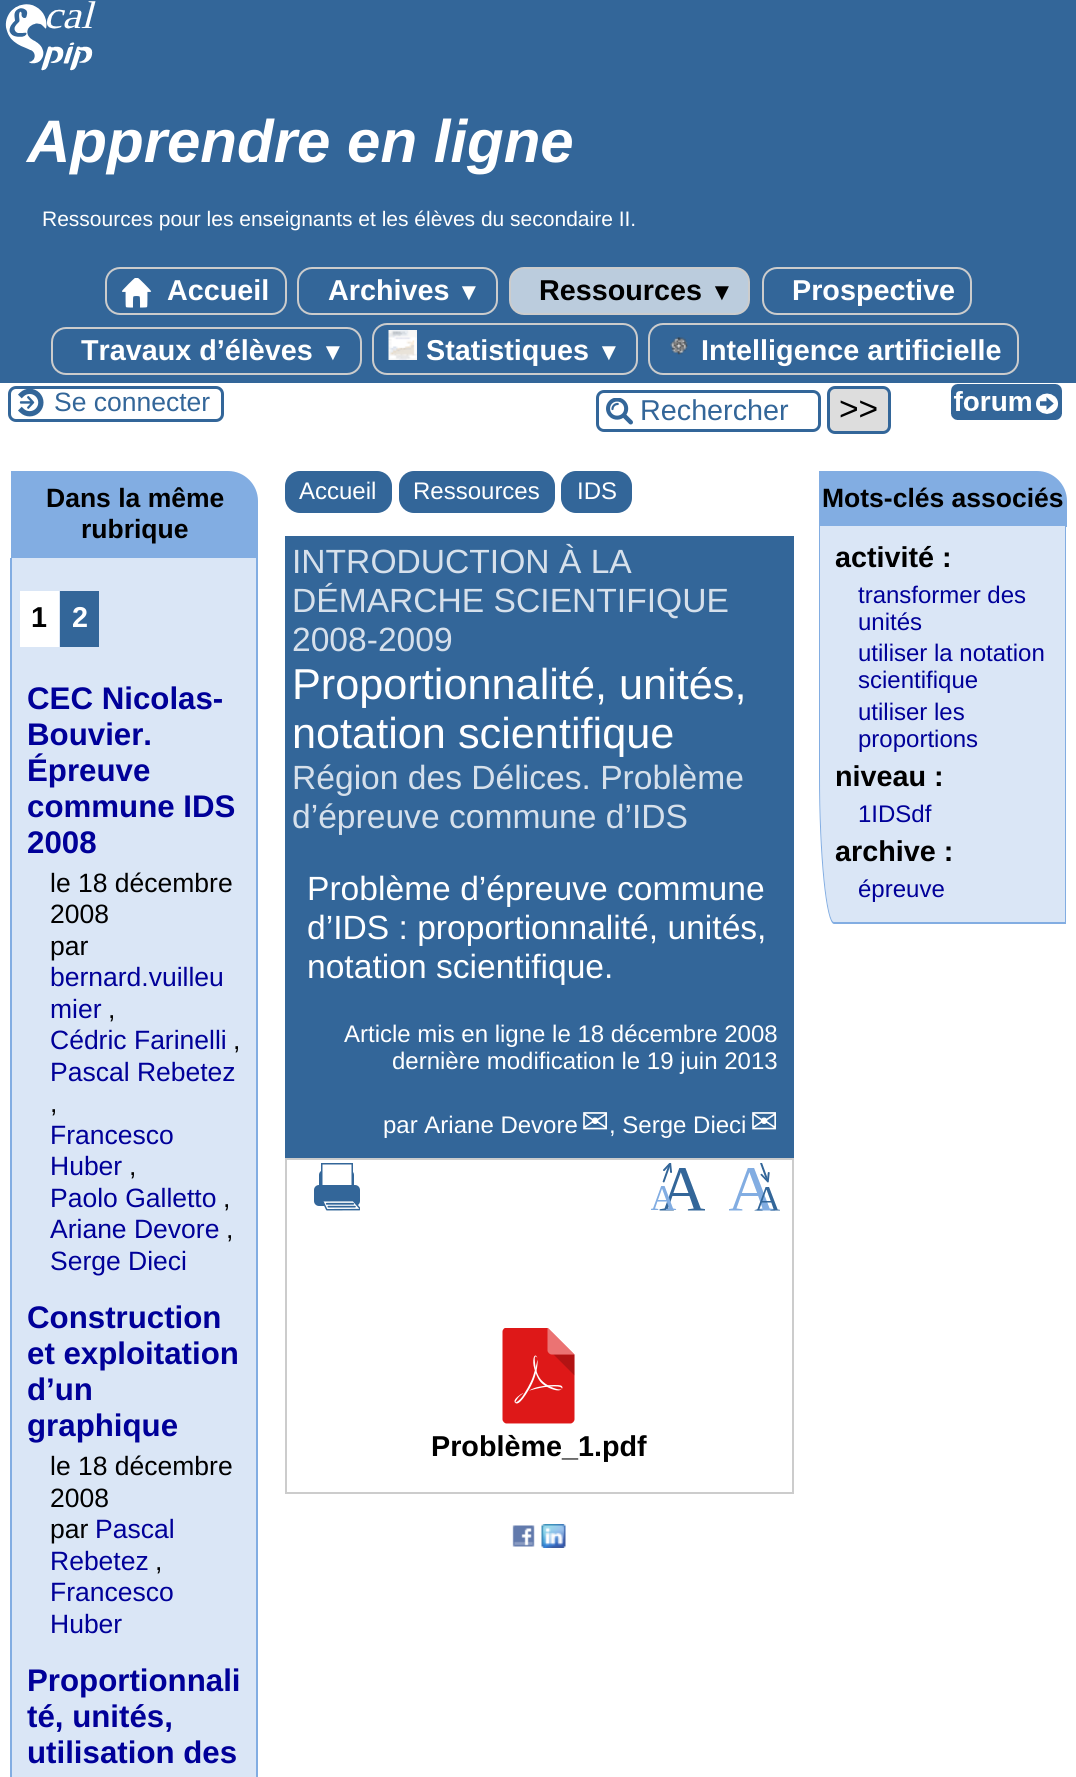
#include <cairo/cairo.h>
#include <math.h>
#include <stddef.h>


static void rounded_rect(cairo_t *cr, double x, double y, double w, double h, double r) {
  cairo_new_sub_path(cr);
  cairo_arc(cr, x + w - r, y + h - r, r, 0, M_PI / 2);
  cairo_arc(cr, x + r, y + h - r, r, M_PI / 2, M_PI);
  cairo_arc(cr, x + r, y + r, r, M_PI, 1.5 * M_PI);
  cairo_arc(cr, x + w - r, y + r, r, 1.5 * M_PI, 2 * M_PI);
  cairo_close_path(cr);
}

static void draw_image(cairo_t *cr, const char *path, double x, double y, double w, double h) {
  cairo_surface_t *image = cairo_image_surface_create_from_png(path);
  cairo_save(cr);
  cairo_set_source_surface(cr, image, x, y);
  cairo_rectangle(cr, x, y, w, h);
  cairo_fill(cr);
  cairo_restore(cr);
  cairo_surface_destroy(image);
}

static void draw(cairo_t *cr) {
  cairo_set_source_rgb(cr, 1, 1, 1);
  cairo_paint(cr);
  cairo_set_source_rgb(cr, 51 / 255.0, 102 / 255.0, 153 / 255.0);
  cairo_rectangle(cr, 0, 0, 1076, 383);
  cairo_fill(cr);
  draw_image(cr, "images/1.png", 5, 1, 91, 70);
  rounded_rect(cr, 106, 268, 180, 46, 14);
  cairo_set_source_rgb(cr, 204 / 255.0, 204 / 255.0, 204 / 255.0);
  cairo_stroke(cr);
  draw_image(cr, "images/2.png", 122, 278, 30, 30);
  rounded_rect(cr, 298, 268, 199, 46, 14);
  cairo_stroke(cr);
  cairo_set_source_rgb(cr, 187 / 255.0, 204 / 255.0, 221 / 255.0);
  rounded_rect(cr, 510, 268, 239, 46, 14);
  cairo_fill_preserve(cr);
  cairo_set_source_rgb(cr, 204 / 255.0, 204 / 255.0, 204 / 255.0);
  cairo_stroke(cr);
  rounded_rect(cr, 763, 268, 208, 46, 14);
  cairo_stroke(cr);
  rounded_rect(cr, 52, 328, 309, 46, 14);
  cairo_stroke(cr);
  rounded_rect(cr, 373, 324, 264, 50, 14);
  cairo_stroke(cr);
  draw_image(cr, "images/3.png", 388, 330, 29, 30);
  rounded_rect(cr, 649, 324, 369, 50, 14);
  cairo_stroke(cr);
  draw_image(cr, "images/4.png", 670, 337, 18, 18);
  draw_image(cr, "images/5.png", 18, 389, 26, 28);
  rounded_rect(cr, 9.5, 387.5, 213, 33, 6.5);
  cairo_set_source_rgb(cr, 51 / 255.0, 102 / 255.0, 153 / 255.0);
  cairo_set_line_width(cr, 3);
  cairo_stroke(cr);
  draw_image(cr, "images/6.png", 606, 398, 27, 27);
  rounded_rect(cr, 597.5, 391.5, 222, 39, 6.5);
  cairo_stroke(cr);
  cairo_set_source_rgb(cr, 221 / 255.0, 221 / 255.0, 221 / 255.0);
  rounded_rect(cr, 828.5, 387.5, 61, 45, 6.5);
  cairo_fill_preserve(cr);
  cairo_set_source_rgb(cr, 51 / 255.0, 102 / 255.0, 153 / 255.0);
  cairo_stroke(cr);
  draw_image(cr, "images/7.png", 951, 384, 111, 36);
  cairo_set_source_rgb(cr, 130 / 255.0, 173 / 255.0, 226 / 255.0);
  cairo_new_path(cr);
  cairo_move_to(cr, 11, 471);
  cairo_line_to(cr, 228, 471);
  cairo_curve_to(cr, 244.5, 471, 258, 484.5, 258, 501);
  cairo_line_to(cr, 258, 558);
  cairo_line_to(cr, 11, 558);
  cairo_close_path(cr);
  cairo_fill(cr);
  cairo_set_source_rgb(cr, 218 / 255.0, 230 / 255.0, 246 / 255.0);
  cairo_new_path(cr);
  cairo_move_to(cr, 12, 558);
  cairo_line_to(cr, 256, 558);
  cairo_line_to(cr, 256, 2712);
  cairo_line_to(cr, 26, 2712);
  cairo_curve_to(cr, 18, 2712, 12, 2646, 12, 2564);
  cairo_close_path(cr);
  cairo_fill(cr);
  cairo_set_source_rgb(cr, 130 / 255.0, 173 / 255.0, 226 / 255.0);
  cairo_set_fill_rule(cr, CAIRO_FILL_RULE_EVEN_ODD);
  cairo_new_path(cr);
  cairo_move_to(cr, 10, 558);
  cairo_line_to(cr, 258, 558);
  cairo_line_to(cr, 258, 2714);
  cairo_line_to(cr, 26, 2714);
  cairo_curve_to(cr, 17, 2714, 10, 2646, 10, 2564);
  cairo_close_path(cr);
  cairo_move_to(cr, 12, 558);
  cairo_line_to(cr, 256, 558);
  cairo_line_to(cr, 256, 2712);
  cairo_line_to(cr, 26, 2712);
  cairo_curve_to(cr, 18, 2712, 12, 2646, 12, 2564);
  cairo_close_path(cr);
  cairo_fill(cr);
  cairo_set_source_rgb(cr, 1, 1, 1);
  cairo_rectangle(cr, 20, 591, 39, 56);
  cairo_fill(cr);
  cairo_set_source_rgb(cr, 51 / 255.0, 102 / 255.0, 153 / 255.0);
  cairo_rectangle(cr, 60, 591, 39, 56);
  cairo_fill(cr);
  rounded_rect(cr, 285, 471, 107, 42, 15);
  cairo_fill(cr);
  rounded_rect(cr, 399, 471, 156, 42, 15);
  cairo_fill(cr);
  rounded_rect(cr, 561, 471, 71, 42, 15);
  cairo_fill(cr);
  cairo_rectangle(cr, 285, 536, 509, 622);
  cairo_fill(cr);
  cairo_rectangle(cr, 286, 1159, 507, 334);
  cairo_set_source_rgb(cr, 204 / 255.0, 204 / 255.0, 204 / 255.0);
  cairo_set_line_width(cr, 2);
  cairo_stroke(cr);
  draw_image(cr, "images/8.png", 314, 1163, 46, 48);
  draw_image(cr, "images/9.png", 651, 1163, 54, 48);
  draw_image(cr, "images/10.png", 729, 1163, 51, 48);
  draw_image(cr, "images/11.png", 502, 1328, 73, 96);
  draw_image(cr, "images/12.png", 512, 1525, 23, 22);
  draw_image(cr, "images/13.png", 541, 1524, 25, 24);
  cairo_set_source_rgb(cr, 130 / 255.0, 173 / 255.0, 226 / 255.0);
  cairo_new_path(cr);
  cairo_move_to(cr, 819, 471);
  cairo_line_to(cr, 1037, 471);
  cairo_curve_to(cr, 1053.5, 471, 1067, 484.5, 1067, 501);
  cairo_line_to(cr, 1067, 527);
  cairo_line_to(cr, 819, 527);
  cairo_close_path(cr);
  cairo_fill(cr);
  cairo_set_source_rgb(cr, 218 / 255.0, 230 / 255.0, 246 / 255.0);
  cairo_set_fill_rule(cr, CAIRO_FILL_RULE_WINDING);
  cairo_new_path(cr);
  cairo_move_to(cr, 820, 526);
  cairo_line_to(cr, 1065, 526);
  cairo_line_to(cr, 1065, 922);
  cairo_line_to(cr, 834, 922);
  cairo_curve_to(cr, 827, 922, 820, 856, 820, 774);
  cairo_close_path(cr);
  cairo_fill(cr);
  cairo_set_source_rgb(cr, 130 / 255.0, 173 / 255.0, 226 / 255.0);
  cairo_set_fill_rule(cr, CAIRO_FILL_RULE_EVEN_ODD);
  cairo_new_path(cr);
  cairo_move_to(cr, 819, 526);
  cairo_line_to(cr, 1066, 526);
  cairo_line_to(cr, 1066, 924);
  cairo_line_to(cr, 834, 924);
  cairo_curve_to(cr, 826, 924, 819, 857, 819, 774);
  cairo_close_path(cr);
  cairo_move_to(cr, 820, 526);
  cairo_line_to(cr, 1065, 526);
  cairo_line_to(cr, 1065, 922);
  cairo_line_to(cr, 834, 922);
  cairo_curve_to(cr, 827, 922, 820, 856, 820, 774);
  cairo_close_path(cr);
  cairo_fill(cr);
  cairo_select_font_face(cr, "Liberation Sans", CAIRO_FONT_SLANT_ITALIC, CAIRO_FONT_WEIGHT_BOLD);
  cairo_set_font_size(cr, 60);
  cairo_set_source_rgb(cr, 1, 1, 1);
  cairo_move_to(cr, 27, 162);
  cairo_show_text(cr, "Apprendre en ligne");
  cairo_select_font_face(cr, "Liberation Sans", CAIRO_FONT_SLANT_NORMAL, CAIRO_FONT_WEIGHT_NORMAL);
  cairo_set_font_size(cr, 21);
  cairo_move_to(cr, 42, 226);
  cairo_show_text(cr, "Ressources pour les enseignants et les élèves du secondaire II.");
  cairo_select_font_face(cr, "Liberation Sans", CAIRO_FONT_SLANT_NORMAL, CAIRO_FONT_WEIGHT_BOLD);
  cairo_set_font_size(cr, 28.75);
  cairo_move_to(cr, 167, 300);
  cairo_show_text(cr, "Accueil");
  cairo_move_to(cr, 328, 300);
  cairo_show_text(cr, "Archives");
  cairo_set_font_size(cr, 24);
  cairo_move_to(cr, 457, 300);
  cairo_show_text(cr, "▼");
  cairo_set_font_size(cr, 28.75);
  cairo_set_source_rgb(cr, 0, 0, 0);
  cairo_move_to(cr, 539, 300);
  cairo_show_text(cr, "Ressources");
  cairo_set_font_size(cr, 24);
  cairo_move_to(cr, 710, 300);
  cairo_show_text(cr, "▼");
  cairo_set_font_size(cr, 28.75);
  cairo_set_source_rgb(cr, 1, 1, 1);
  cairo_move_to(cr, 792, 300);
  cairo_show_text(cr, "Prospective");
  cairo_move_to(cr, 81, 360);
  cairo_show_text(cr, "Travaux d’élèves");
  cairo_set_font_size(cr, 24);
  cairo_move_to(cr, 321, 360);
  cairo_show_text(cr, "▼");
  cairo_set_font_size(cr, 28.75);
  cairo_move_to(cr, 426, 360);
  cairo_show_text(cr, "Statistiques");
  cairo_set_font_size(cr, 24);
  cairo_move_to(cr, 597, 360);
  cairo_show_text(cr, "▼");
  cairo_set_font_size(cr, 28.75);
  cairo_move_to(cr, 701, 360);
  cairo_show_text(cr, "Intelligence artificielle");
  cairo_select_font_face(cr, "Liberation Sans", CAIRO_FONT_SLANT_NORMAL, CAIRO_FONT_WEIGHT_NORMAL);
  cairo_set_font_size(cr, 26.5);
  cairo_set_source_rgb(cr, 51 / 255.0, 102 / 255.0, 153 / 255.0);
  cairo_move_to(cr, 54, 411);
  cairo_show_text(cr, "Se connecter");
  cairo_set_font_size(cr, 28.75);
  cairo_move_to(cr, 640, 420);
  cairo_show_text(cr, "Rechercher");
  cairo_set_font_size(cr, 33.6);
  cairo_set_source_rgb(cr, 0, 0, 0);
  cairo_move_to(cr, 839, 420);
  cairo_show_text(cr, ">>");
  cairo_select_font_face(cr, "Liberation Sans", CAIRO_FONT_SLANT_NORMAL, CAIRO_FONT_WEIGHT_BOLD);
  cairo_set_font_size(cr, 26.5);
  cairo_move_to(cr, 46, 507);
  cairo_show_text(cr, "Dans la même");
  cairo_move_to(cr, 81, 538);
  cairo_show_text(cr, "rubrique");
  cairo_set_font_size(cr, 28.75);
  cairo_move_to(cr, 31, 627);
  cairo_show_text(cr, "1");
  cairo_set_source_rgb(cr, 1, 1, 1);
  cairo_move_to(cr, 72, 627);
  cairo_show_text(cr, "2");
  cairo_set_font_size(cr, 31.25);
  cairo_set_source_rgb(cr, 0, 0, 153 / 255.0);
  cairo_move_to(cr, 27, 709);
  cairo_show_text(cr, "CEC Nicolas-");
  cairo_move_to(cr, 27, 745);
  cairo_show_text(cr, "Bouvier.");
  cairo_move_to(cr, 27, 781);
  cairo_show_text(cr, "Épreuve");
  cairo_move_to(cr, 27, 817);
  cairo_show_text(cr, "commune IDS");
  cairo_move_to(cr, 27, 853);
  cairo_show_text(cr, "2008");
  cairo_select_font_face(cr, "Liberation Sans", CAIRO_FONT_SLANT_NORMAL, CAIRO_FONT_WEIGHT_NORMAL);
  cairo_set_font_size(cr, 26.5);
  cairo_set_source_rgb(cr, 0, 0, 0);
  cairo_move_to(cr, 50, 892);
  cairo_show_text(cr, "le 18 décembre");
  cairo_move_to(cr, 50, 923);
  cairo_show_text(cr, "2008");
  cairo_move_to(cr, 50, 955);
  cairo_show_text(cr, "par");
  cairo_set_source_rgb(cr, 0, 0, 153 / 255.0);
  cairo_move_to(cr, 50, 986);
  cairo_show_text(cr, "bernard.vuilleu");
  cairo_move_to(cr, 50, 1018);
  cairo_show_text(cr, "mier");
  cairo_set_source_rgb(cr, 0, 0, 0);
  cairo_move_to(cr, 108, 1018);
  cairo_show_text(cr, ",");
  cairo_set_source_rgb(cr, 0, 0, 153 / 255.0);
  cairo_move_to(cr, 50, 1049);
  cairo_show_text(cr, "Cédric Farinelli");
  cairo_set_source_rgb(cr, 0, 0, 0);
  cairo_move_to(cr, 233, 1049);
  cairo_show_text(cr, ",");
  cairo_set_source_rgb(cr, 0, 0, 153 / 255.0);
  cairo_move_to(cr, 50, 1081);
  cairo_show_text(cr, "Pascal Rebetez");
  cairo_set_source_rgb(cr, 0, 0, 0);
  cairo_move_to(cr, 50, 1112);
  cairo_show_text(cr, ",");
  cairo_set_source_rgb(cr, 0, 0, 153 / 255.0);
  cairo_move_to(cr, 50, 1144);
  cairo_show_text(cr, "Francesco");
  cairo_move_to(cr, 50, 1175);
  cairo_show_text(cr, "Huber");
  cairo_set_source_rgb(cr, 0, 0, 0);
  cairo_move_to(cr, 129, 1175);
  cairo_show_text(cr, ",");
  cairo_set_source_rgb(cr, 0, 0, 153 / 255.0);
  cairo_move_to(cr, 50, 1207);
  cairo_show_text(cr, "Paolo Galletto");
  cairo_set_source_rgb(cr, 0, 0, 0);
  cairo_move_to(cr, 223, 1207);
  cairo_show_text(cr, ",");
  cairo_set_source_rgb(cr, 0, 0, 153 / 255.0);
  cairo_move_to(cr, 50, 1238);
  cairo_show_text(cr, "Ariane Devore");
  cairo_set_source_rgb(cr, 0, 0, 0);
  cairo_move_to(cr, 226, 1238);
  cairo_show_text(cr, ",");
  cairo_set_source_rgb(cr, 0, 0, 153 / 255.0);
  cairo_move_to(cr, 50, 1270);
  cairo_show_text(cr, "Serge Dieci");
  cairo_select_font_face(cr, "Liberation Sans", CAIRO_FONT_SLANT_NORMAL, CAIRO_FONT_WEIGHT_BOLD);
  cairo_set_font_size(cr, 31.25);
  cairo_move_to(cr, 27, 1328);
  cairo_show_text(cr, "Construction");
  cairo_move_to(cr, 27, 1364);
  cairo_show_text(cr, "et exploitation");
  cairo_move_to(cr, 27, 1400);
  cairo_show_text(cr, "d’un");
  cairo_move_to(cr, 27, 1436);
  cairo_show_text(cr, "graphique");
  cairo_select_font_face(cr, "Liberation Sans", CAIRO_FONT_SLANT_NORMAL, CAIRO_FONT_WEIGHT_NORMAL);
  cairo_set_font_size(cr, 26.5);
  cairo_set_source_rgb(cr, 0, 0, 0);
  cairo_move_to(cr, 50, 1475);
  cairo_show_text(cr, "le 18 décembre");
  cairo_move_to(cr, 50, 1507);
  cairo_show_text(cr, "2008");
  cairo_move_to(cr, 50, 1538);
  cairo_show_text(cr, "par");
  cairo_set_source_rgb(cr, 0, 0, 153 / 255.0);
  cairo_move_to(cr, 95, 1538);
  cairo_show_text(cr, "Pascal");
  cairo_move_to(cr, 50, 1570);
  cairo_show_text(cr, "Rebetez");
  cairo_set_source_rgb(cr, 0, 0, 0);
  cairo_move_to(cr, 155, 1570);
  cairo_show_text(cr, ",");
  cairo_set_source_rgb(cr, 0, 0, 153 / 255.0);
  cairo_move_to(cr, 50, 1601);
  cairo_show_text(cr, "Francesco");
  cairo_move_to(cr, 50, 1633);
  cairo_show_text(cr, "Huber");
  cairo_select_font_face(cr, "Liberation Sans", CAIRO_FONT_SLANT_NORMAL, CAIRO_FONT_WEIGHT_BOLD);
  cairo_set_font_size(cr, 31.25);
  cairo_move_to(cr, 27, 1691);
  cairo_show_text(cr, "Proportionnali");
  cairo_move_to(cr, 27, 1727);
  cairo_show_text(cr, "té, unités,");
  cairo_move_to(cr, 27, 1763);
  cairo_show_text(cr, "utilisation des");
  cairo_select_font_face(cr, "Liberation Sans", CAIRO_FONT_SLANT_NORMAL, CAIRO_FONT_WEIGHT_NORMAL);
  cairo_set_font_size(cr, 24);
  cairo_set_source_rgb(cr, 1, 1, 1);
  cairo_move_to(cr, 299, 499);
  cairo_show_text(cr, "Accueil");
  cairo_move_to(cr, 413, 499);
  cairo_show_text(cr, "Ressources");
  cairo_move_to(cr, 577, 499);
  cairo_show_text(cr, "IDS");
  cairo_set_font_size(cr, 33.6);
  cairo_set_source_rgb(cr, 214 / 255.0, 224 / 255.0, 235 / 255.0);
  cairo_move_to(cr, 292, 573);
  cairo_show_text(cr, "INTRODUCTION À LA");
  cairo_move_to(cr, 292, 612);
  cairo_show_text(cr, "DÉMARCHE SCIENTIFIQUE");
  cairo_move_to(cr, 292, 651);
  cairo_show_text(cr, "2008-2009");
  cairo_set_font_size(cr, 43.25);
  cairo_set_source_rgb(cr, 1, 1, 1);
  cairo_move_to(cr, 292, 699);
  cairo_show_text(cr, "Proportionnalité, unités,");
  cairo_move_to(cr, 292, 748);
  cairo_show_text(cr, "notation scientifique");
  cairo_set_font_size(cr, 33.6);
  cairo_set_source_rgb(cr, 214 / 255.0, 224 / 255.0, 235 / 255.0);
  cairo_move_to(cr, 292, 789);
  cairo_show_text(cr, "Région des Délices. Problème");
  cairo_move_to(cr, 292, 828);
  cairo_show_text(cr, "d’épreuve commune d’IDS");
  cairo_set_source_rgb(cr, 1, 1, 1);
  cairo_move_to(cr, 307, 900);
  cairo_show_text(cr, "Problème d’épreuve commune");
  cairo_move_to(cr, 307, 939);
  cairo_show_text(cr, "d’IDS : proportionnalité, unités,");
  cairo_move_to(cr, 307, 978);
  cairo_show_text(cr, "notation scientifique.");
  cairo_set_font_size(cr, 24);
  cairo_move_to(cr, 344, 1042);
  cairo_show_text(cr, "Article mis en ligne le 18 décembre 2008");
  cairo_move_to(cr, 392, 1069);
  cairo_show_text(cr, "dernière modification le 19 juin 2013");
  cairo_move_to(cr, 383, 1133);
  cairo_show_text(cr, "par Ariane Devore");
  cairo_select_font_face(cr, "DejaVu Sans", CAIRO_FONT_SLANT_NORMAL, CAIRO_FONT_WEIGHT_NORMAL);
  cairo_set_font_size(cr, 33.6);
  cairo_move_to(cr, 581, 1133);
  cairo_show_text(cr, "✉");
  cairo_select_font_face(cr, "Liberation Sans", CAIRO_FONT_SLANT_NORMAL, CAIRO_FONT_WEIGHT_NORMAL);
  cairo_set_font_size(cr, 24);
  cairo_move_to(cr, 609, 1133);
  cairo_show_text(cr, ", Serge Dieci");
  cairo_select_font_face(cr, "DejaVu Sans", CAIRO_FONT_SLANT_NORMAL, CAIRO_FONT_WEIGHT_NORMAL);
  cairo_set_font_size(cr, 33.6);
  cairo_move_to(cr, 750, 1133);
  cairo_show_text(cr, "✉");
  cairo_select_font_face(cr, "Liberation Sans", CAIRO_FONT_SLANT_NORMAL, CAIRO_FONT_WEIGHT_BOLD);
  cairo_set_font_size(cr, 28.75);
  cairo_set_source_rgb(cr, 0, 0, 0);
  cairo_move_to(cr, 431, 1456);
  cairo_show_text(cr, "Problème_1.pdf");
  cairo_set_font_size(cr, 26.5);
  cairo_move_to(cr, 822, 507);
  cairo_show_text(cr, "Mots-clés associés");
  cairo_set_font_size(cr, 28.75);
  cairo_move_to(cr, 835, 567);
  cairo_show_text(cr, "activité :");
  cairo_select_font_face(cr, "Liberation Sans", CAIRO_FONT_SLANT_NORMAL, CAIRO_FONT_WEIGHT_NORMAL);
  cairo_set_font_size(cr, 24);
  cairo_set_source_rgb(cr, 0, 0, 153 / 255.0);
  cairo_move_to(cr, 858, 603);
  cairo_show_text(cr, "transformer des");
  cairo_move_to(cr, 858, 630);
  cairo_show_text(cr, "unités");
  cairo_move_to(cr, 858, 661);
  cairo_show_text(cr, "utiliser la notation");
  cairo_move_to(cr, 858, 688);
  cairo_show_text(cr, "scientifique");
  cairo_move_to(cr, 858, 720);
  cairo_show_text(cr, "utiliser les");
  cairo_move_to(cr, 858, 747);
  cairo_show_text(cr, "proportions");
  cairo_select_font_face(cr, "Liberation Sans", CAIRO_FONT_SLANT_NORMAL, CAIRO_FONT_WEIGHT_BOLD);
  cairo_set_font_size(cr, 28.75);
  cairo_set_source_rgb(cr, 0, 0, 0);
  cairo_move_to(cr, 835, 786);
  cairo_show_text(cr, "niveau :");
  cairo_select_font_face(cr, "Liberation Sans", CAIRO_FONT_SLANT_NORMAL, CAIRO_FONT_WEIGHT_NORMAL);
  cairo_set_font_size(cr, 24);
  cairo_set_source_rgb(cr, 0, 0, 153 / 255.0);
  cairo_move_to(cr, 858, 822);
  cairo_show_text(cr, "1IDSdf");
  cairo_select_font_face(cr, "Liberation Sans", CAIRO_FONT_SLANT_NORMAL, CAIRO_FONT_WEIGHT_BOLD);
  cairo_set_font_size(cr, 28.75);
  cairo_set_source_rgb(cr, 0, 0, 0);
  cairo_move_to(cr, 835, 861);
  cairo_show_text(cr, "archive :");
  cairo_select_font_face(cr, "Liberation Sans", CAIRO_FONT_SLANT_NORMAL, CAIRO_FONT_WEIGHT_NORMAL);
  cairo_set_font_size(cr, 24);
  cairo_set_source_rgb(cr, 0, 0, 153 / 255.0);
  cairo_move_to(cr, 858, 897);
  cairo_show_text(cr, "épreuve");
}

int main(void) {
  cairo_surface_t *surface = cairo_image_surface_create(CAIRO_FORMAT_RGB24, 1076, 1777);
  cairo_t *cr = cairo_create(surface);
  cairo_font_options_t *options = cairo_font_options_create();
  cairo_font_options_set_hint_metrics(options, CAIRO_HINT_METRICS_OFF);
  cairo_font_options_set_hint_style(options, CAIRO_HINT_STYLE_NONE);
  cairo_set_font_options(cr, options);
  cairo_set_miter_limit(cr, 4);
  draw(cr);
  cairo_surface_write_to_png(surface, "out.png");
  cairo_font_options_destroy(options);
  cairo_destroy(cr);
  cairo_surface_destroy(surface);
  return 0;
}
